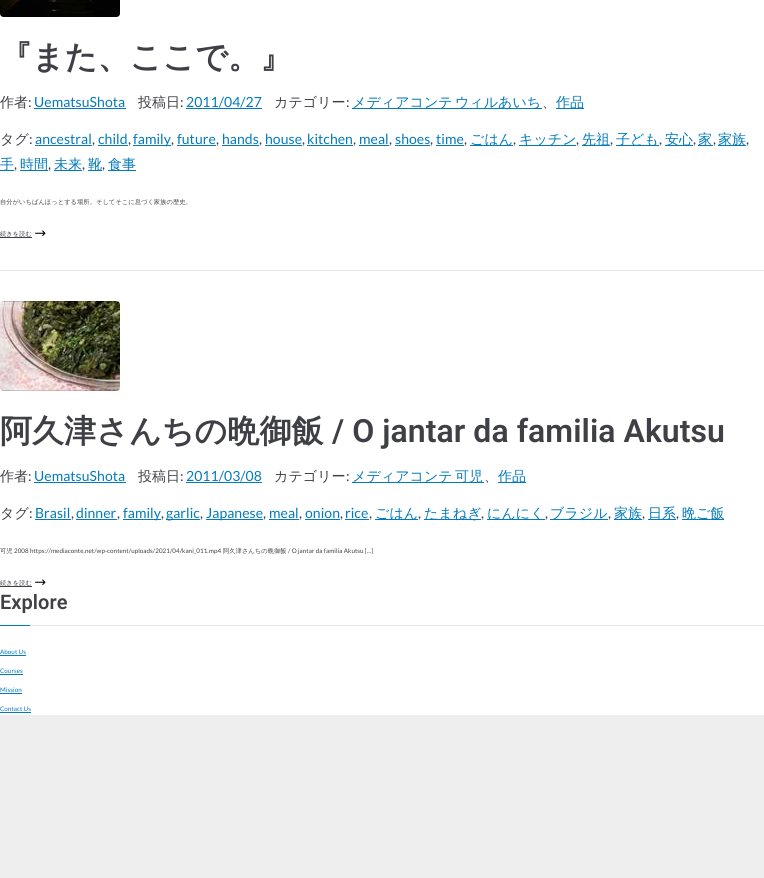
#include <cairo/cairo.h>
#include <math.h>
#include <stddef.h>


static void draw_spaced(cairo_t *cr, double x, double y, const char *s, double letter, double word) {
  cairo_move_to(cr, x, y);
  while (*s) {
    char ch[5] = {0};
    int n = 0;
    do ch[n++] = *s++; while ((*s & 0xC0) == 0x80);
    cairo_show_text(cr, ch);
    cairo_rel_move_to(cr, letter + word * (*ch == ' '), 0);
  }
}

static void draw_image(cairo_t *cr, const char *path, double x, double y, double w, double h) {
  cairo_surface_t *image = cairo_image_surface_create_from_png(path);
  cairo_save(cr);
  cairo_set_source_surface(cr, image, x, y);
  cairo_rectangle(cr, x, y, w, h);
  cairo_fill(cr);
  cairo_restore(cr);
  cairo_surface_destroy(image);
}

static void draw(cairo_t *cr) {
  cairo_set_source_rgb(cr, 1, 1, 1);
  cairo_paint(cr);
  cairo_set_source_rgb(cr, 228 / 255.0, 228 / 255.0, 231 / 255.0);
  cairo_rectangle(cr, 0, 270, 764, 1);
  cairo_fill(cr);
  draw_image(cr, "images/1.png", 0, 0, 120, 17);
  cairo_set_source_rgb(cr, 2 / 255.0, 122 / 255.0, 187 / 255.0);
  cairo_rectangle(cr, 34, 108, 92, 1);
  cairo_fill(cr);
  cairo_rectangle(cr, 186, 108, 76, 1);
  cairo_fill(cr);
  cairo_rectangle(cr, 352, 108, 190, 1);
  cairo_fill(cr);
  cairo_rectangle(cr, 556, 108, 28, 1);
  cairo_fill(cr);
  cairo_rectangle(cr, 35, 145, 57, 1);
  cairo_fill(cr);
  cairo_rectangle(cr, 98, 145, 30, 1);
  cairo_fill(cr);
  cairo_rectangle(cr, 133, 145, 38, 1);
  cairo_fill(cr);
  cairo_rectangle(cr, 177, 145, 39, 1);
  cairo_fill(cr);
  cairo_rectangle(cr, 222, 145, 37, 1);
  cairo_fill(cr);
  cairo_rectangle(cr, 265, 145, 37, 1);
  cairo_fill(cr);
  cairo_rectangle(cr, 307, 145, 46, 1);
  cairo_fill(cr);
  cairo_rectangle(cr, 359, 145, 30, 1);
  cairo_fill(cr);
  cairo_rectangle(cr, 395, 145, 35, 1);
  cairo_fill(cr);
  cairo_rectangle(cr, 436, 145, 28, 1);
  cairo_fill(cr);
  cairo_rectangle(cr, 470, 145, 43, 1);
  cairo_fill(cr);
  cairo_rectangle(cr, 519, 145, 57, 1);
  cairo_fill(cr);
  cairo_rectangle(cr, 582, 145, 28, 1);
  cairo_fill(cr);
  cairo_rectangle(cr, 616, 145, 43, 1);
  cairo_fill(cr);
  cairo_rectangle(cr, 665, 145, 28, 1);
  cairo_fill(cr);
  cairo_rectangle(cr, 698, 145, 15, 1);
  cairo_fill(cr);
  cairo_rectangle(cr, 718, 145, 28, 1);
  cairo_fill(cr);
  cairo_rectangle(cr, 0, 170, 14, 1);
  cairo_fill(cr);
  cairo_rectangle(cr, 20, 170, 28, 1);
  cairo_fill(cr);
  cairo_rectangle(cr, 54, 170, 28, 1);
  cairo_fill(cr);
  cairo_rectangle(cr, 88, 170, 14, 1);
  cairo_fill(cr);
  cairo_rectangle(cr, 108, 170, 28, 1);
  cairo_fill(cr);
  cairo_set_source_rgb(cr, 63 / 255.0, 63 / 255.0, 70 / 255.0);
  cairo_rectangle(cr, 0, 237, 32, 1);
  cairo_fill(cr);
  draw_image(cr, "images/2.png", 35, 230, 11, 6);
  draw_image(cr, "images/3.png", 0, 301, 120, 90);
  cairo_set_source_rgb(cr, 2 / 255.0, 122 / 255.0, 187 / 255.0);
  cairo_rectangle(cr, 34, 482, 92, 1);
  cairo_fill(cr);
  cairo_rectangle(cr, 186, 482, 76, 1);
  cairo_fill(cr);
  cairo_rectangle(cr, 352, 482, 132, 1);
  cairo_fill(cr);
  cairo_rectangle(cr, 498, 482, 28, 1);
  cairo_fill(cr);
  cairo_rectangle(cr, 35, 519, 36, 1);
  cairo_fill(cr);
  cairo_rectangle(cr, 76, 519, 41, 1);
  cairo_fill(cr);
  cairo_rectangle(cr, 123, 519, 38, 1);
  cairo_fill(cr);
  cairo_rectangle(cr, 166, 519, 34, 1);
  cairo_fill(cr);
  cairo_rectangle(cr, 206, 519, 57, 1);
  cairo_fill(cr);
  cairo_rectangle(cr, 269, 519, 30, 1);
  cairo_fill(cr);
  cairo_rectangle(cr, 305, 519, 35, 1);
  cairo_fill(cr);
  cairo_rectangle(cr, 345, 519, 24, 1);
  cairo_fill(cr);
  cairo_rectangle(cr, 375, 519, 43, 1);
  cairo_fill(cr);
  cairo_rectangle(cr, 424, 519, 57, 1);
  cairo_fill(cr);
  cairo_rectangle(cr, 487, 519, 58, 1);
  cairo_fill(cr);
  cairo_rectangle(cr, 550, 519, 58, 1);
  cairo_fill(cr);
  cairo_rectangle(cr, 614, 519, 28, 1);
  cairo_fill(cr);
  cairo_rectangle(cr, 648, 519, 28, 1);
  cairo_fill(cr);
  cairo_rectangle(cr, 682, 519, 42, 1);
  cairo_fill(cr);
  cairo_set_source_rgb(cr, 63 / 255.0, 63 / 255.0, 70 / 255.0);
  cairo_rectangle(cr, 0, 586, 32, 1);
  cairo_fill(cr);
  draw_image(cr, "images/2.png", 35, 579, 11, 6);
  cairo_set_source_rgb(cr, 228 / 255.0, 228 / 255.0, 231 / 255.0);
  cairo_rectangle(cr, 30, 625, 734, 1);
  cairo_fill(cr);
  cairo_set_source_rgb(cr, 2 / 255.0, 122 / 255.0, 187 / 255.0);
  cairo_rectangle(cr, 0, 625, 30, 1);
  cairo_fill(cr);
  cairo_rectangle(cr, 0, 655, 26, 1);
  cairo_fill(cr);
  cairo_rectangle(cr, 0, 674, 23, 1);
  cairo_fill(cr);
  cairo_rectangle(cr, 0, 693, 22, 1);
  cairo_fill(cr);
  cairo_rectangle(cr, 0, 712, 31, 1);
  cairo_fill(cr);
  cairo_set_source_rgb(cr, 238 / 255.0, 238 / 255.0, 238 / 255.0);
  cairo_rectangle(cr, 0, 715, 764, 163);
  cairo_fill(cr);
  cairo_select_font_face(cr, "WenQuanYi Zen Hei", CAIRO_FONT_SLANT_NORMAL, CAIRO_FONT_WEIGHT_BOLD);
  cairo_set_font_size(cr, 32);
  cairo_set_source_rgb(cr, 63 / 255.0, 63 / 255.0, 70 / 255.0);
  draw_spaced(cr, 0, 68, "『また、ここで。』", 0.05, 0);
  cairo_select_font_face(cr, "WenQuanYi Zen Hei Medium", CAIRO_FONT_SLANT_NORMAL, CAIRO_FONT_WEIGHT_NORMAL);
  cairo_set_font_size(cr, 14);
  draw_spaced(cr, 0, 107, "作者", 0.05, 0);
  cairo_select_font_face(cr, "Lato", CAIRO_FONT_SLANT_NORMAL, CAIRO_FONT_WEIGHT_NORMAL);
  draw_spaced(cr, 28, 107, ":", 0.05, 0);
  cairo_set_source_rgb(cr, 2 / 255.0, 122 / 255.0, 187 / 255.0);
  draw_spaced(cr, 34, 107, "UematsuShota", 0.05, 0);
  cairo_select_font_face(cr, "WenQuanYi Zen Hei Medium", CAIRO_FONT_SLANT_NORMAL, CAIRO_FONT_WEIGHT_NORMAL);
  cairo_set_source_rgb(cr, 63 / 255.0, 63 / 255.0, 70 / 255.0);
  draw_spaced(cr, 138, 107, "投稿日", 0.05, 0);
  cairo_select_font_face(cr, "Lato", CAIRO_FONT_SLANT_NORMAL, CAIRO_FONT_WEIGHT_NORMAL);
  draw_spaced(cr, 180, 107, ":", 0.05, 0);
  cairo_set_source_rgb(cr, 2 / 255.0, 122 / 255.0, 187 / 255.0);
  draw_spaced(cr, 186, 107, "2011/04/27", 0.05, 0);
  cairo_select_font_face(cr, "WenQuanYi Zen Hei Medium", CAIRO_FONT_SLANT_NORMAL, CAIRO_FONT_WEIGHT_NORMAL);
  cairo_set_source_rgb(cr, 63 / 255.0, 63 / 255.0, 70 / 255.0);
  draw_spaced(cr, 274, 107, "カテゴリー", 0.05, 0);
  cairo_select_font_face(cr, "Lato", CAIRO_FONT_SLANT_NORMAL, CAIRO_FONT_WEIGHT_NORMAL);
  draw_spaced(cr, 346, 107, ":", 0.05, 0);
  cairo_select_font_face(cr, "WenQuanYi Zen Hei Medium", CAIRO_FONT_SLANT_NORMAL, CAIRO_FONT_WEIGHT_NORMAL);
  cairo_set_source_rgb(cr, 2 / 255.0, 122 / 255.0, 187 / 255.0);
  draw_spaced(cr, 352, 107, "メディアコンテ ウィルあいち", 0.05, -2);
  cairo_set_source_rgb(cr, 63 / 255.0, 63 / 255.0, 70 / 255.0);
  draw_spaced(cr, 542, 107, "、", 0.05, 0);
  cairo_set_source_rgb(cr, 2 / 255.0, 122 / 255.0, 187 / 255.0);
  draw_spaced(cr, 556, 107, "作品", 0.05, 0);
  cairo_set_source_rgb(cr, 63 / 255.0, 63 / 255.0, 70 / 255.0);
  draw_spaced(cr, 0, 144, "タグ", 0.05, 0);
  cairo_select_font_face(cr, "Lato", CAIRO_FONT_SLANT_NORMAL, CAIRO_FONT_WEIGHT_NORMAL);
  draw_spaced(cr, 29, 144, ":", 0.05, 0);
  cairo_set_source_rgb(cr, 2 / 255.0, 122 / 255.0, 187 / 255.0);
  draw_spaced(cr, 35, 144, "ancestral", 0.05, 0);
  cairo_set_source_rgb(cr, 63 / 255.0, 63 / 255.0, 70 / 255.0);
  draw_spaced(cr, 92, 144, ",", 0.05, 0);
  cairo_set_source_rgb(cr, 2 / 255.0, 122 / 255.0, 187 / 255.0);
  draw_spaced(cr, 98, 144, "child", 0.05, 0);
  cairo_set_source_rgb(cr, 63 / 255.0, 63 / 255.0, 70 / 255.0);
  draw_spaced(cr, 128, 144, ",", 0.05, 0);
  cairo_set_source_rgb(cr, 2 / 255.0, 122 / 255.0, 187 / 255.0);
  draw_spaced(cr, 133, 144, "family", 0.05, 0);
  cairo_set_source_rgb(cr, 63 / 255.0, 63 / 255.0, 70 / 255.0);
  draw_spaced(cr, 171, 144, ",", 0.05, 0);
  cairo_set_source_rgb(cr, 2 / 255.0, 122 / 255.0, 187 / 255.0);
  draw_spaced(cr, 177, 144, "future", 0.05, 0);
  cairo_set_source_rgb(cr, 63 / 255.0, 63 / 255.0, 70 / 255.0);
  draw_spaced(cr, 216, 144, ",", 0.05, 0);
  cairo_set_source_rgb(cr, 2 / 255.0, 122 / 255.0, 187 / 255.0);
  draw_spaced(cr, 222, 144, "hands", 0.05, 0);
  cairo_set_source_rgb(cr, 63 / 255.0, 63 / 255.0, 70 / 255.0);
  draw_spaced(cr, 259, 144, ",", 0.05, 0);
  cairo_set_source_rgb(cr, 2 / 255.0, 122 / 255.0, 187 / 255.0);
  draw_spaced(cr, 265, 144, "house", 0.05, 0);
  cairo_set_source_rgb(cr, 63 / 255.0, 63 / 255.0, 70 / 255.0);
  draw_spaced(cr, 302, 144, ",", 0.05, 0);
  cairo_set_source_rgb(cr, 2 / 255.0, 122 / 255.0, 187 / 255.0);
  draw_spaced(cr, 307, 144, "kitchen", 0.05, 0);
  cairo_set_source_rgb(cr, 63 / 255.0, 63 / 255.0, 70 / 255.0);
  draw_spaced(cr, 353, 144, ",", 0.05, 0);
  cairo_set_source_rgb(cr, 2 / 255.0, 122 / 255.0, 187 / 255.0);
  draw_spaced(cr, 359, 144, "meal", 0.05, 0);
  cairo_set_source_rgb(cr, 63 / 255.0, 63 / 255.0, 70 / 255.0);
  draw_spaced(cr, 389, 144, ",", 0.05, 0);
  cairo_set_source_rgb(cr, 2 / 255.0, 122 / 255.0, 187 / 255.0);
  draw_spaced(cr, 395, 144, "shoes", 0.05, 0);
  cairo_set_source_rgb(cr, 63 / 255.0, 63 / 255.0, 70 / 255.0);
  draw_spaced(cr, 430, 144, ",", 0.05, 0);
  cairo_set_source_rgb(cr, 2 / 255.0, 122 / 255.0, 187 / 255.0);
  draw_spaced(cr, 436, 144, "time", 0.05, 0);
  cairo_set_source_rgb(cr, 63 / 255.0, 63 / 255.0, 70 / 255.0);
  draw_spaced(cr, 464, 144, ",", 0.05, 0);
  cairo_select_font_face(cr, "WenQuanYi Zen Hei Medium", CAIRO_FONT_SLANT_NORMAL, CAIRO_FONT_WEIGHT_NORMAL);
  cairo_set_source_rgb(cr, 2 / 255.0, 122 / 255.0, 187 / 255.0);
  draw_spaced(cr, 470, 144, "ごはん", 0.05, 0);
  cairo_select_font_face(cr, "Lato", CAIRO_FONT_SLANT_NORMAL, CAIRO_FONT_WEIGHT_NORMAL);
  cairo_set_source_rgb(cr, 63 / 255.0, 63 / 255.0, 70 / 255.0);
  draw_spaced(cr, 513, 144, ",", 0.05, 0);
  cairo_select_font_face(cr, "WenQuanYi Zen Hei Medium", CAIRO_FONT_SLANT_NORMAL, CAIRO_FONT_WEIGHT_NORMAL);
  cairo_set_source_rgb(cr, 2 / 255.0, 122 / 255.0, 187 / 255.0);
  draw_spaced(cr, 519, 144, "キッチン", 0.05, 0);
  cairo_select_font_face(cr, "Lato", CAIRO_FONT_SLANT_NORMAL, CAIRO_FONT_WEIGHT_NORMAL);
  cairo_set_source_rgb(cr, 63 / 255.0, 63 / 255.0, 70 / 255.0);
  draw_spaced(cr, 576, 144, ",", 0.05, 0);
  cairo_select_font_face(cr, "WenQuanYi Zen Hei Medium", CAIRO_FONT_SLANT_NORMAL, CAIRO_FONT_WEIGHT_NORMAL);
  cairo_set_source_rgb(cr, 2 / 255.0, 122 / 255.0, 187 / 255.0);
  draw_spaced(cr, 582, 144, "先祖", 0.05, 0);
  cairo_select_font_face(cr, "Lato", CAIRO_FONT_SLANT_NORMAL, CAIRO_FONT_WEIGHT_NORMAL);
  cairo_set_source_rgb(cr, 63 / 255.0, 63 / 255.0, 70 / 255.0);
  draw_spaced(cr, 610, 144, ",", 0.05, 0);
  cairo_select_font_face(cr, "WenQuanYi Zen Hei Medium", CAIRO_FONT_SLANT_NORMAL, CAIRO_FONT_WEIGHT_NORMAL);
  cairo_set_source_rgb(cr, 2 / 255.0, 122 / 255.0, 187 / 255.0);
  draw_spaced(cr, 616, 144, "子ども", 0.05, 0);
  cairo_select_font_face(cr, "Lato", CAIRO_FONT_SLANT_NORMAL, CAIRO_FONT_WEIGHT_NORMAL);
  cairo_set_source_rgb(cr, 63 / 255.0, 63 / 255.0, 70 / 255.0);
  draw_spaced(cr, 659, 144, ",", 0.05, 0);
  cairo_select_font_face(cr, "WenQuanYi Zen Hei Medium", CAIRO_FONT_SLANT_NORMAL, CAIRO_FONT_WEIGHT_NORMAL);
  cairo_set_source_rgb(cr, 2 / 255.0, 122 / 255.0, 187 / 255.0);
  draw_spaced(cr, 665, 144, "安心", 0.05, 0);
  cairo_select_font_face(cr, "Lato", CAIRO_FONT_SLANT_NORMAL, CAIRO_FONT_WEIGHT_NORMAL);
  cairo_set_source_rgb(cr, 63 / 255.0, 63 / 255.0, 70 / 255.0);
  draw_spaced(cr, 693, 144, ",", 0.05, 0);
  cairo_select_font_face(cr, "WenQuanYi Zen Hei Medium", CAIRO_FONT_SLANT_NORMAL, CAIRO_FONT_WEIGHT_NORMAL);
  cairo_set_source_rgb(cr, 2 / 255.0, 122 / 255.0, 187 / 255.0);
  draw_spaced(cr, 698, 144, "家", 0.05, 0);
  cairo_select_font_face(cr, "Lato", CAIRO_FONT_SLANT_NORMAL, CAIRO_FONT_WEIGHT_NORMAL);
  cairo_set_source_rgb(cr, 63 / 255.0, 63 / 255.0, 70 / 255.0);
  draw_spaced(cr, 713, 144, ",", 0.05, 0);
  cairo_select_font_face(cr, "WenQuanYi Zen Hei Medium", CAIRO_FONT_SLANT_NORMAL, CAIRO_FONT_WEIGHT_NORMAL);
  cairo_set_source_rgb(cr, 2 / 255.0, 122 / 255.0, 187 / 255.0);
  draw_spaced(cr, 718, 144, "家族", 0.05, 0);
  cairo_select_font_face(cr, "Lato", CAIRO_FONT_SLANT_NORMAL, CAIRO_FONT_WEIGHT_NORMAL);
  cairo_set_source_rgb(cr, 63 / 255.0, 63 / 255.0, 70 / 255.0);
  draw_spaced(cr, 746, 144, ",", 0.05, 0);
  cairo_select_font_face(cr, "WenQuanYi Zen Hei Medium", CAIRO_FONT_SLANT_NORMAL, CAIRO_FONT_WEIGHT_NORMAL);
  cairo_set_source_rgb(cr, 2 / 255.0, 122 / 255.0, 187 / 255.0);
  draw_spaced(cr, 0, 169, "手", 0.05, 0);
  cairo_select_font_face(cr, "Lato", CAIRO_FONT_SLANT_NORMAL, CAIRO_FONT_WEIGHT_NORMAL);
  cairo_set_source_rgb(cr, 63 / 255.0, 63 / 255.0, 70 / 255.0);
  draw_spaced(cr, 14, 169, ",", 0.05, 0);
  cairo_select_font_face(cr, "WenQuanYi Zen Hei Medium", CAIRO_FONT_SLANT_NORMAL, CAIRO_FONT_WEIGHT_NORMAL);
  cairo_set_source_rgb(cr, 2 / 255.0, 122 / 255.0, 187 / 255.0);
  draw_spaced(cr, 20, 169, "時間", 0.05, 0);
  cairo_select_font_face(cr, "Lato", CAIRO_FONT_SLANT_NORMAL, CAIRO_FONT_WEIGHT_NORMAL);
  cairo_set_source_rgb(cr, 63 / 255.0, 63 / 255.0, 70 / 255.0);
  draw_spaced(cr, 48, 169, ",", 0.05, 0);
  cairo_select_font_face(cr, "WenQuanYi Zen Hei Medium", CAIRO_FONT_SLANT_NORMAL, CAIRO_FONT_WEIGHT_NORMAL);
  cairo_set_source_rgb(cr, 2 / 255.0, 122 / 255.0, 187 / 255.0);
  draw_spaced(cr, 54, 169, "未来", 0.05, 0);
  cairo_select_font_face(cr, "Lato", CAIRO_FONT_SLANT_NORMAL, CAIRO_FONT_WEIGHT_NORMAL);
  cairo_set_source_rgb(cr, 63 / 255.0, 63 / 255.0, 70 / 255.0);
  draw_spaced(cr, 82, 169, ",", 0.05, 0);
  cairo_select_font_face(cr, "WenQuanYi Zen Hei Medium", CAIRO_FONT_SLANT_NORMAL, CAIRO_FONT_WEIGHT_NORMAL);
  cairo_set_source_rgb(cr, 2 / 255.0, 122 / 255.0, 187 / 255.0);
  draw_spaced(cr, 88, 169, "靴", 0.05, 0);
  cairo_select_font_face(cr, "Lato", CAIRO_FONT_SLANT_NORMAL, CAIRO_FONT_WEIGHT_NORMAL);
  cairo_set_source_rgb(cr, 63 / 255.0, 63 / 255.0, 70 / 255.0);
  draw_spaced(cr, 102, 169, ",", 0.05, 0);
  cairo_select_font_face(cr, "WenQuanYi Zen Hei Medium", CAIRO_FONT_SLANT_NORMAL, CAIRO_FONT_WEIGHT_NORMAL);
  cairo_set_source_rgb(cr, 2 / 255.0, 122 / 255.0, 187 / 255.0);
  draw_spaced(cr, 108, 169, "食事", 0.05, 0);
  cairo_set_font_size(cr, 6.25);
  cairo_set_source_rgb(cr, 63 / 255.0, 63 / 255.0, 70 / 255.0);
  draw_spaced(cr, 0, 204, "自分がいちばんほっとする場所。そしてそこに息づく家族の歴史。", 0.05, 0);
  draw_spaced(cr, 0, 236, "続きを読む", 0.05, 0);
  cairo_select_font_face(cr, "WenQuanYi Zen Hei", CAIRO_FONT_SLANT_NORMAL, CAIRO_FONT_WEIGHT_BOLD);
  cairo_set_font_size(cr, 32);
  draw_spaced(cr, 0, 442, "阿久津さんちの晩御飯", 0.05, 0);
  cairo_select_font_face(cr, "Roboto SemiBold", CAIRO_FONT_SLANT_NORMAL, CAIRO_FONT_WEIGHT_NORMAL);
  draw_spaced(cr, 332, 442, "/ O jantar da familia Akutsu", 0.05, 0);
  cairo_select_font_face(cr, "WenQuanYi Zen Hei Medium", CAIRO_FONT_SLANT_NORMAL, CAIRO_FONT_WEIGHT_NORMAL);
  cairo_set_font_size(cr, 14);
  draw_spaced(cr, 0, 481, "作者", 0.05, 0);
  cairo_select_font_face(cr, "Lato", CAIRO_FONT_SLANT_NORMAL, CAIRO_FONT_WEIGHT_NORMAL);
  draw_spaced(cr, 28, 481, ":", 0.05, 0);
  cairo_set_source_rgb(cr, 2 / 255.0, 122 / 255.0, 187 / 255.0);
  draw_spaced(cr, 34, 481, "UematsuShota", 0.05, 0);
  cairo_select_font_face(cr, "WenQuanYi Zen Hei Medium", CAIRO_FONT_SLANT_NORMAL, CAIRO_FONT_WEIGHT_NORMAL);
  cairo_set_source_rgb(cr, 63 / 255.0, 63 / 255.0, 70 / 255.0);
  draw_spaced(cr, 138, 481, "投稿日", 0.05, 0);
  cairo_select_font_face(cr, "Lato", CAIRO_FONT_SLANT_NORMAL, CAIRO_FONT_WEIGHT_NORMAL);
  draw_spaced(cr, 180, 481, ":", 0.05, 0);
  cairo_set_source_rgb(cr, 2 / 255.0, 122 / 255.0, 187 / 255.0);
  draw_spaced(cr, 186, 481, "2011/03/08", 0.05, 0);
  cairo_select_font_face(cr, "WenQuanYi Zen Hei Medium", CAIRO_FONT_SLANT_NORMAL, CAIRO_FONT_WEIGHT_NORMAL);
  cairo_set_source_rgb(cr, 63 / 255.0, 63 / 255.0, 70 / 255.0);
  draw_spaced(cr, 274, 481, "カテゴリー", 0.05, 0);
  cairo_select_font_face(cr, "Lato", CAIRO_FONT_SLANT_NORMAL, CAIRO_FONT_WEIGHT_NORMAL);
  draw_spaced(cr, 346, 481, ":", 0.05, 0);
  cairo_select_font_face(cr, "WenQuanYi Zen Hei Medium", CAIRO_FONT_SLANT_NORMAL, CAIRO_FONT_WEIGHT_NORMAL);
  cairo_set_source_rgb(cr, 2 / 255.0, 122 / 255.0, 187 / 255.0);
  draw_spaced(cr, 352, 481, "メディアコンテ 可児", 0.05, -2);
  cairo_set_source_rgb(cr, 63 / 255.0, 63 / 255.0, 70 / 255.0);
  draw_spaced(cr, 484, 481, "、", 0.05, 0);
  cairo_set_source_rgb(cr, 2 / 255.0, 122 / 255.0, 187 / 255.0);
  draw_spaced(cr, 498, 481, "作品", 0.05, 0);
  cairo_set_source_rgb(cr, 63 / 255.0, 63 / 255.0, 70 / 255.0);
  draw_spaced(cr, 0, 518, "タグ", 0.05, 0);
  cairo_select_font_face(cr, "Lato", CAIRO_FONT_SLANT_NORMAL, CAIRO_FONT_WEIGHT_NORMAL);
  draw_spaced(cr, 29, 518, ":", 0.05, 0);
  cairo_set_source_rgb(cr, 2 / 255.0, 122 / 255.0, 187 / 255.0);
  draw_spaced(cr, 35, 518, "Brasil", 0.05, 0);
  cairo_set_source_rgb(cr, 63 / 255.0, 63 / 255.0, 70 / 255.0);
  draw_spaced(cr, 71, 518, ",", 0.05, 0);
  cairo_set_source_rgb(cr, 2 / 255.0, 122 / 255.0, 187 / 255.0);
  draw_spaced(cr, 76, 518, "dinner", 0.05, 0);
  cairo_set_source_rgb(cr, 63 / 255.0, 63 / 255.0, 70 / 255.0);
  draw_spaced(cr, 117, 518, ",", 0.05, 0);
  cairo_set_source_rgb(cr, 2 / 255.0, 122 / 255.0, 187 / 255.0);
  draw_spaced(cr, 123, 518, "family", 0.05, 0);
  cairo_set_source_rgb(cr, 63 / 255.0, 63 / 255.0, 70 / 255.0);
  draw_spaced(cr, 161, 518, ",", 0.05, 0);
  cairo_set_source_rgb(cr, 2 / 255.0, 122 / 255.0, 187 / 255.0);
  draw_spaced(cr, 166, 518, "garlic", 0.05, 0);
  cairo_set_source_rgb(cr, 63 / 255.0, 63 / 255.0, 70 / 255.0);
  draw_spaced(cr, 200, 518, ",", 0.05, 0);
  cairo_set_source_rgb(cr, 2 / 255.0, 122 / 255.0, 187 / 255.0);
  draw_spaced(cr, 206, 518, "Japanese", 0.05, 0);
  cairo_set_source_rgb(cr, 63 / 255.0, 63 / 255.0, 70 / 255.0);
  draw_spaced(cr, 263, 518, ",", 0.05, 0);
  cairo_set_source_rgb(cr, 2 / 255.0, 122 / 255.0, 187 / 255.0);
  draw_spaced(cr, 269, 518, "meal", 0.05, 0);
  cairo_set_source_rgb(cr, 63 / 255.0, 63 / 255.0, 70 / 255.0);
  draw_spaced(cr, 299, 518, ",", 0.05, 0);
  cairo_set_source_rgb(cr, 2 / 255.0, 122 / 255.0, 187 / 255.0);
  draw_spaced(cr, 305, 518, "onion", 0.05, 0);
  cairo_set_source_rgb(cr, 63 / 255.0, 63 / 255.0, 70 / 255.0);
  draw_spaced(cr, 340, 518, ",", 0.05, 0);
  cairo_set_source_rgb(cr, 2 / 255.0, 122 / 255.0, 187 / 255.0);
  draw_spaced(cr, 345, 518, "rice", 0.05, 0);
  cairo_set_source_rgb(cr, 63 / 255.0, 63 / 255.0, 70 / 255.0);
  draw_spaced(cr, 369, 518, ",", 0.05, 0);
  cairo_select_font_face(cr, "WenQuanYi Zen Hei Medium", CAIRO_FONT_SLANT_NORMAL, CAIRO_FONT_WEIGHT_NORMAL);
  cairo_set_source_rgb(cr, 2 / 255.0, 122 / 255.0, 187 / 255.0);
  draw_spaced(cr, 375, 518, "ごはん", 0.05, 0);
  cairo_select_font_face(cr, "Lato", CAIRO_FONT_SLANT_NORMAL, CAIRO_FONT_WEIGHT_NORMAL);
  cairo_set_source_rgb(cr, 63 / 255.0, 63 / 255.0, 70 / 255.0);
  draw_spaced(cr, 418, 518, ",", 0.05, 0);
  cairo_select_font_face(cr, "WenQuanYi Zen Hei Medium", CAIRO_FONT_SLANT_NORMAL, CAIRO_FONT_WEIGHT_NORMAL);
  cairo_set_source_rgb(cr, 2 / 255.0, 122 / 255.0, 187 / 255.0);
  draw_spaced(cr, 424, 518, "たまねぎ", 0.05, 0);
  cairo_select_font_face(cr, "Lato", CAIRO_FONT_SLANT_NORMAL, CAIRO_FONT_WEIGHT_NORMAL);
  cairo_set_source_rgb(cr, 63 / 255.0, 63 / 255.0, 70 / 255.0);
  draw_spaced(cr, 481, 518, ",", 0.05, 0);
  cairo_select_font_face(cr, "WenQuanYi Zen Hei Medium", CAIRO_FONT_SLANT_NORMAL, CAIRO_FONT_WEIGHT_NORMAL);
  cairo_set_source_rgb(cr, 2 / 255.0, 122 / 255.0, 187 / 255.0);
  draw_spaced(cr, 487, 518, "にんにく", 0.05, 0);
  cairo_select_font_face(cr, "Lato", CAIRO_FONT_SLANT_NORMAL, CAIRO_FONT_WEIGHT_NORMAL);
  cairo_set_source_rgb(cr, 63 / 255.0, 63 / 255.0, 70 / 255.0);
  draw_spaced(cr, 545, 518, ",", 0.05, 0);
  cairo_select_font_face(cr, "WenQuanYi Zen Hei Medium", CAIRO_FONT_SLANT_NORMAL, CAIRO_FONT_WEIGHT_NORMAL);
  cairo_set_source_rgb(cr, 2 / 255.0, 122 / 255.0, 187 / 255.0);
  draw_spaced(cr, 550, 518, "ブラジル", 0.05, 0);
  cairo_select_font_face(cr, "Lato", CAIRO_FONT_SLANT_NORMAL, CAIRO_FONT_WEIGHT_NORMAL);
  cairo_set_source_rgb(cr, 63 / 255.0, 63 / 255.0, 70 / 255.0);
  draw_spaced(cr, 608, 518, ",", 0.05, 0);
  cairo_select_font_face(cr, "WenQuanYi Zen Hei Medium", CAIRO_FONT_SLANT_NORMAL, CAIRO_FONT_WEIGHT_NORMAL);
  cairo_set_source_rgb(cr, 2 / 255.0, 122 / 255.0, 187 / 255.0);
  draw_spaced(cr, 614, 518, "家族", 0.05, 0);
  cairo_select_font_face(cr, "Lato", CAIRO_FONT_SLANT_NORMAL, CAIRO_FONT_WEIGHT_NORMAL);
  cairo_set_source_rgb(cr, 63 / 255.0, 63 / 255.0, 70 / 255.0);
  draw_spaced(cr, 642, 518, ",", 0.05, 0);
  cairo_select_font_face(cr, "WenQuanYi Zen Hei Medium", CAIRO_FONT_SLANT_NORMAL, CAIRO_FONT_WEIGHT_NORMAL);
  cairo_set_source_rgb(cr, 2 / 255.0, 122 / 255.0, 187 / 255.0);
  draw_spaced(cr, 648, 518, "日系", 0.05, 0);
  cairo_select_font_face(cr, "Lato", CAIRO_FONT_SLANT_NORMAL, CAIRO_FONT_WEIGHT_NORMAL);
  cairo_set_source_rgb(cr, 63 / 255.0, 63 / 255.0, 70 / 255.0);
  draw_spaced(cr, 676, 518, ",", 0.05, 0);
  cairo_select_font_face(cr, "WenQuanYi Zen Hei Medium", CAIRO_FONT_SLANT_NORMAL, CAIRO_FONT_WEIGHT_NORMAL);
  cairo_set_source_rgb(cr, 2 / 255.0, 122 / 255.0, 187 / 255.0);
  draw_spaced(cr, 682, 518, "晩ご飯", 0.05, 0);
  cairo_set_font_size(cr, 6.25);
  cairo_set_source_rgb(cr, 63 / 255.0, 63 / 255.0, 70 / 255.0);
  draw_spaced(cr, 0, 553, "可児", 0.05, 0);
  cairo_select_font_face(cr, "Lato", CAIRO_FONT_SLANT_NORMAL, CAIRO_FONT_WEIGHT_NORMAL);
  draw_spaced(cr, 14, 553, "2008 https://mediaconte.net/wp-content/uploads/2021/04/kani_011.mp4", 0.05, 0);
  cairo_select_font_face(cr, "WenQuanYi Zen Hei Medium", CAIRO_FONT_SLANT_NORMAL, CAIRO_FONT_WEIGHT_NORMAL);
  draw_spaced(cr, 223, 553, "阿久津さんちの晩御飯", 0.05, 0);
  cairo_select_font_face(cr, "Lato", CAIRO_FONT_SLANT_NORMAL, CAIRO_FONT_WEIGHT_NORMAL);
  draw_spaced(cr, 288, 553, "/ O jantar da familia Akutsu […]", 0.05, 0);
  cairo_select_font_face(cr, "WenQuanYi Zen Hei Medium", CAIRO_FONT_SLANT_NORMAL, CAIRO_FONT_WEIGHT_NORMAL);
  draw_spaced(cr, 0, 585, "続きを読む", 0.05, 0);
  cairo_select_font_face(cr, "Roboto SemiBold", CAIRO_FONT_SLANT_NORMAL, CAIRO_FONT_WEIGHT_NORMAL);
  cairo_set_font_size(cr, 20);
  draw_spaced(cr, 0, 609, "Explore", 0.05, 0);
  cairo_select_font_face(cr, "Lato", CAIRO_FONT_SLANT_NORMAL, CAIRO_FONT_WEIGHT_NORMAL);
  cairo_set_font_size(cr, 6.25);
  cairo_set_source_rgb(cr, 2 / 255.0, 122 / 255.0, 187 / 255.0);
  draw_spaced(cr, 0, 654, "About Us", 0.05, 0);
  draw_spaced(cr, 0, 673, "Courses", 0.05, 0);
  draw_spaced(cr, 0, 692, "Mission", 0.05, 0);
  draw_spaced(cr, 0, 711, "Contact Us", 0.05, 0);
}

int main(void) {
  cairo_surface_t *surface = cairo_image_surface_create(CAIRO_FORMAT_RGB24, 764, 878);
  cairo_t *cr = cairo_create(surface);
  cairo_font_options_t *options = cairo_font_options_create();
  cairo_font_options_set_hint_metrics(options, CAIRO_HINT_METRICS_OFF);
  cairo_font_options_set_hint_style(options, CAIRO_HINT_STYLE_NONE);
  cairo_set_font_options(cr, options);
  cairo_set_miter_limit(cr, 4);
  draw(cr);
  cairo_surface_write_to_png(surface, "out.png");
  cairo_font_options_destroy(options);
  cairo_destroy(cr);
  cairo_surface_destroy(surface);
  return 0;
}
